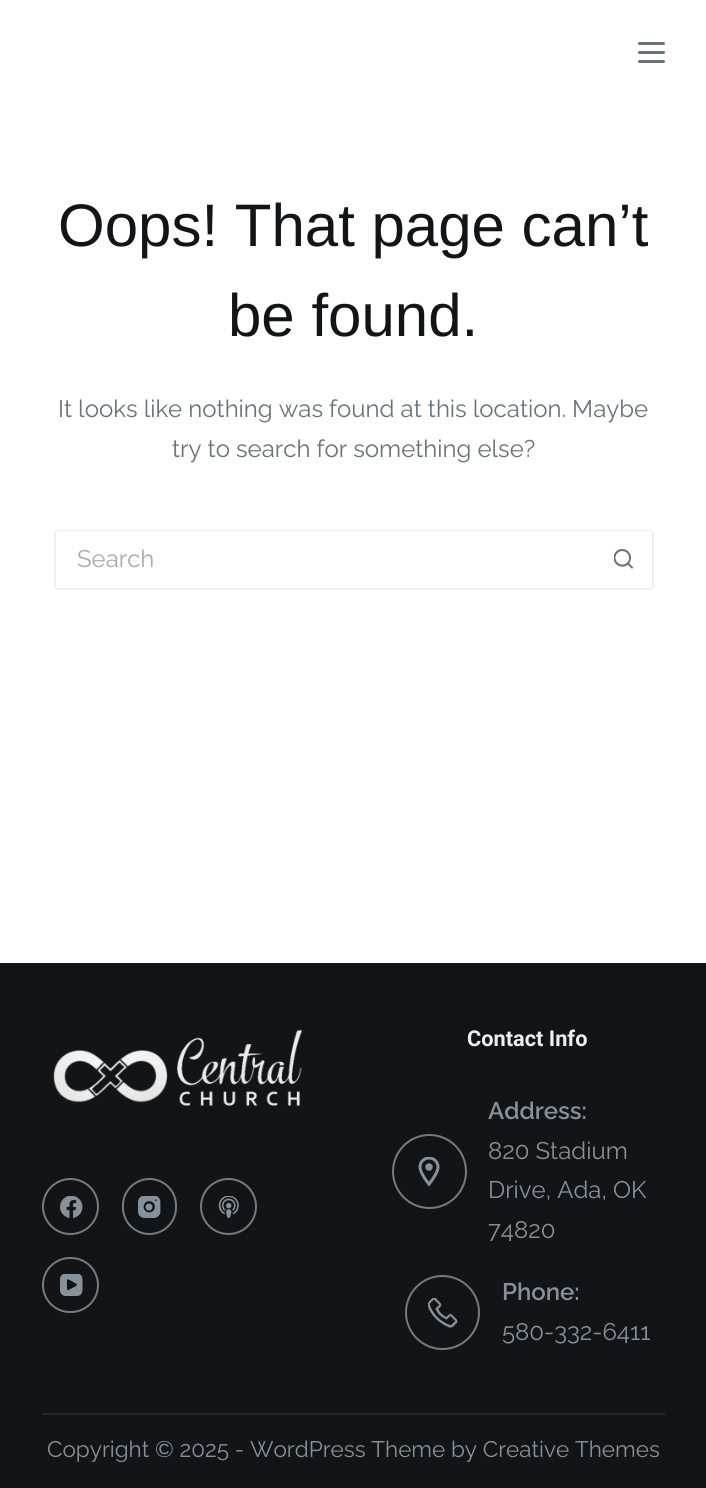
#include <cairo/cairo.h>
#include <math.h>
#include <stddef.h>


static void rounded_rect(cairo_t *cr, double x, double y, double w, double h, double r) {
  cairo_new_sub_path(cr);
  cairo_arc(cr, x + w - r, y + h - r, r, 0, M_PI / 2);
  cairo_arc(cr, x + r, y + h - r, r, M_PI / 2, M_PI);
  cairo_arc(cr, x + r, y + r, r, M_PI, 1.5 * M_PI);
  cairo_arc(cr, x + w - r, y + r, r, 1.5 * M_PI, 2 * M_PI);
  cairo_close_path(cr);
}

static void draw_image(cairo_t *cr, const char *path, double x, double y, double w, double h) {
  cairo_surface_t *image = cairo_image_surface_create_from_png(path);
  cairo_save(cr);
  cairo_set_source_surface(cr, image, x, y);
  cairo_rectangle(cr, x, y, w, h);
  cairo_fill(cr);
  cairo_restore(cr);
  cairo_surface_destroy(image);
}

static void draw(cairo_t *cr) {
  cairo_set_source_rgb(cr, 1, 1, 1);
  cairo_paint(cr);
  cairo_set_source_rgb(cr, 104 / 255.0, 114 / 255.0, 121 / 255.0);
  rounded_rect(cr, 638, 42, 27, 3, 1.5);
  cairo_fill(cr);
  rounded_rect(cr, 638, 51, 27, 3, 1.5);
  cairo_fill(cr);
  rounded_rect(cr, 638, 60, 27, 3, 1.5);
  cairo_fill(cr);
  cairo_set_source_rgb(cr, 237 / 255.0, 239 / 255.0, 242 / 255.0);
  cairo_set_fill_rule(cr, CAIRO_FILL_RULE_EVEN_ODD);
  cairo_new_path(cr);
  cairo_move_to(cr, 58, 530);
  cairo_line_to(cr, 594, 530);
  cairo_line_to(cr, 594, 590);
  cairo_line_to(cr, 58, 590);
  cairo_curve_to(cr, 56, 590, 54, 587, 54, 585);
  cairo_line_to(cr, 54, 534);
  cairo_curve_to(cr, 54, 532, 56, 530, 58, 530);
  cairo_close_path(cr);
  cairo_move_to(cr, 58, 531);
  cairo_line_to(cr, 594, 531);
  cairo_line_to(cr, 594, 588);
  cairo_line_to(cr, 58, 588);
  cairo_curve_to(cr, 57, 588, 56, 587, 56, 585);
  cairo_line_to(cr, 56, 534);
  cairo_curve_to(cr, 56, 532, 57, 531, 58, 531);
  cairo_close_path(cr);
  cairo_fill(cr);
  cairo_new_path(cr);
  cairo_move_to(cr, 594, 530);
  cairo_line_to(cr, 650, 530);
  cairo_curve_to(cr, 652, 530, 654, 532, 654, 534);
  cairo_line_to(cr, 654, 585);
  cairo_curve_to(cr, 654, 587, 652, 590, 650, 590);
  cairo_line_to(cr, 594, 590);
  cairo_close_path(cr);
  cairo_move_to(cr, 594, 531);
  cairo_line_to(cr, 650, 531);
  cairo_curve_to(cr, 651, 531, 652, 532, 652, 534);
  cairo_line_to(cr, 652, 585);
  cairo_curve_to(cr, 652, 587, 651, 588, 650, 588);
  cairo_line_to(cr, 594, 588);
  cairo_close_path(cr);
  cairo_fill(cr);
  draw_image(cr, "images/1.png", 614, 549, 19, 20);
  cairo_set_source_rgb(cr, 17 / 255.0, 21 / 255.0, 24 / 255.0);
  cairo_rectangle(cr, 0, 963, 706, 525);
  cairo_fill(cr);
  draw_image(cr, "images/2.png", 53, 1029, 250, 77);
  cairo_arc(cr, 70.5, 1206.5, 27.5, 0, 2 * M_PI);
  cairo_set_source_rgb(cr, 118 / 255.0, 122 / 255.0, 126 / 255.0);
  cairo_stroke(cr);
  draw_image(cr, "images/3.png", 60, 1196, 23, 22);
  rounded_rect(cr, 123, 1179, 53, 55, 26.5);
  cairo_stroke(cr);
  draw_image(cr, "images/4.png", 138, 1196, 23, 22);
  cairo_arc(cr, 228.5, 1206.5, 27.5, 0, 2 * M_PI);
  cairo_stroke(cr);
  draw_image(cr, "images/5.png", 218, 1196, 21, 22);
  rounded_rect(cr, 43, 1258, 55, 54, 27);
  cairo_stroke(cr);
  draw_image(cr, "images/6.png", 60, 1274, 23, 22);
  cairo_arc(cr, 429.5, 1171.5, 36.5, 0, 2 * M_PI);
  cairo_stroke(cr);
  draw_image(cr, "images/7.png", 418, 1157, 22, 30);
  cairo_arc(cr, 442.5, 1312.5, 36.5, 0, 2 * M_PI);
  cairo_stroke(cr);
  draw_image(cr, "images/8.png", 428, 1298, 30, 30);
  cairo_set_source_rgb(cr, 32 / 255.0, 40 / 255.0, 46 / 255.0);
  cairo_rectangle(cr, 42, 1413, 623, 2);
  cairo_fill(cr);
  cairo_select_font_face(cr, "Liberation Sans", CAIRO_FONT_SLANT_NORMAL, CAIRO_FONT_WEIGHT_NORMAL);
  cairo_set_font_size(cr, 60);
  cairo_set_source_rgb(cr, 17 / 255.0, 21 / 255.0, 24 / 255.0);
  cairo_move_to(cr, 58, 246);
  cairo_show_text(cr, "Oops! That page can’t");
  cairo_move_to(cr, 228, 336);
  cairo_show_text(cr, "be found.");
  cairo_select_font_face(cr, "Raleway", CAIRO_FONT_SLANT_NORMAL, CAIRO_FONT_WEIGHT_NORMAL);
  cairo_set_font_size(cr, 24);
  cairo_set_source_rgb(cr, 104 / 255.0, 114 / 255.0, 121 / 255.0);
  cairo_move_to(cr, 58, 417);
  cairo_show_text(cr, "It looks like nothing was found at this location. Maybe");
  cairo_move_to(cr, 172, 457);
  cairo_show_text(cr, "try to search for something else?");
  cairo_set_source_rgb(cr, 164 / 255.0, 170 / 255.0, 175 / 255.0);
  cairo_move_to(cr, 77, 567);
  cairo_show_text(cr, "Search");
  cairo_select_font_face(cr, "Roboto", CAIRO_FONT_SLANT_NORMAL, CAIRO_FONT_WEIGHT_BOLD);
  cairo_set_font_size(cr, 21.75);
  cairo_set_source_rgb(cr, 237 / 255.0, 239 / 255.0, 242 / 255.0);
  cairo_move_to(cr, 467, 1046);
  cairo_show_text(cr, "Contact Info");
  cairo_select_font_face(cr, "Raleway SemiBold", CAIRO_FONT_SLANT_NORMAL, CAIRO_FONT_WEIGHT_NORMAL);
  cairo_set_font_size(cr, 24);
  cairo_set_source_rgb(cr, 134 / 255.0, 145 / 255.0, 154 / 255.0);
  cairo_move_to(cr, 488, 1119);
  cairo_show_text(cr, "Address:");
  cairo_select_font_face(cr, "Raleway", CAIRO_FONT_SLANT_NORMAL, CAIRO_FONT_WEIGHT_NORMAL);
  cairo_move_to(cr, 488, 1159);
  cairo_show_text(cr, "820 Stadium");
  cairo_move_to(cr, 488, 1198);
  cairo_show_text(cr, "Drive, Ada, OK");
  cairo_move_to(cr, 488, 1238);
  cairo_show_text(cr, "74820");
  cairo_select_font_face(cr, "Raleway SemiBold", CAIRO_FONT_SLANT_NORMAL, CAIRO_FONT_WEIGHT_NORMAL);
  cairo_move_to(cr, 502, 1300);
  cairo_show_text(cr, "Phone:");
  cairo_select_font_face(cr, "Raleway", CAIRO_FONT_SLANT_NORMAL, CAIRO_FONT_WEIGHT_NORMAL);
  cairo_move_to(cr, 502, 1340);
  cairo_show_text(cr, "580-332-6411");
  cairo_set_font_size(cr, 22.5);
  cairo_move_to(cr, 47, 1457);
  cairo_show_text(cr, "Copyright © 2025 - WordPress Theme by Creative Themes");
}

int main(void) {
  cairo_surface_t *surface = cairo_image_surface_create(CAIRO_FORMAT_RGB24, 706, 1488);
  cairo_t *cr = cairo_create(surface);
  cairo_font_options_t *options = cairo_font_options_create();
  cairo_font_options_set_hint_metrics(options, CAIRO_HINT_METRICS_OFF);
  cairo_font_options_set_hint_style(options, CAIRO_HINT_STYLE_NONE);
  cairo_set_font_options(cr, options);
  cairo_set_miter_limit(cr, 4);
  draw(cr);
  cairo_surface_write_to_png(surface, "out.png");
  cairo_font_options_destroy(options);
  cairo_destroy(cr);
  cairo_surface_destroy(surface);
  return 0;
}
